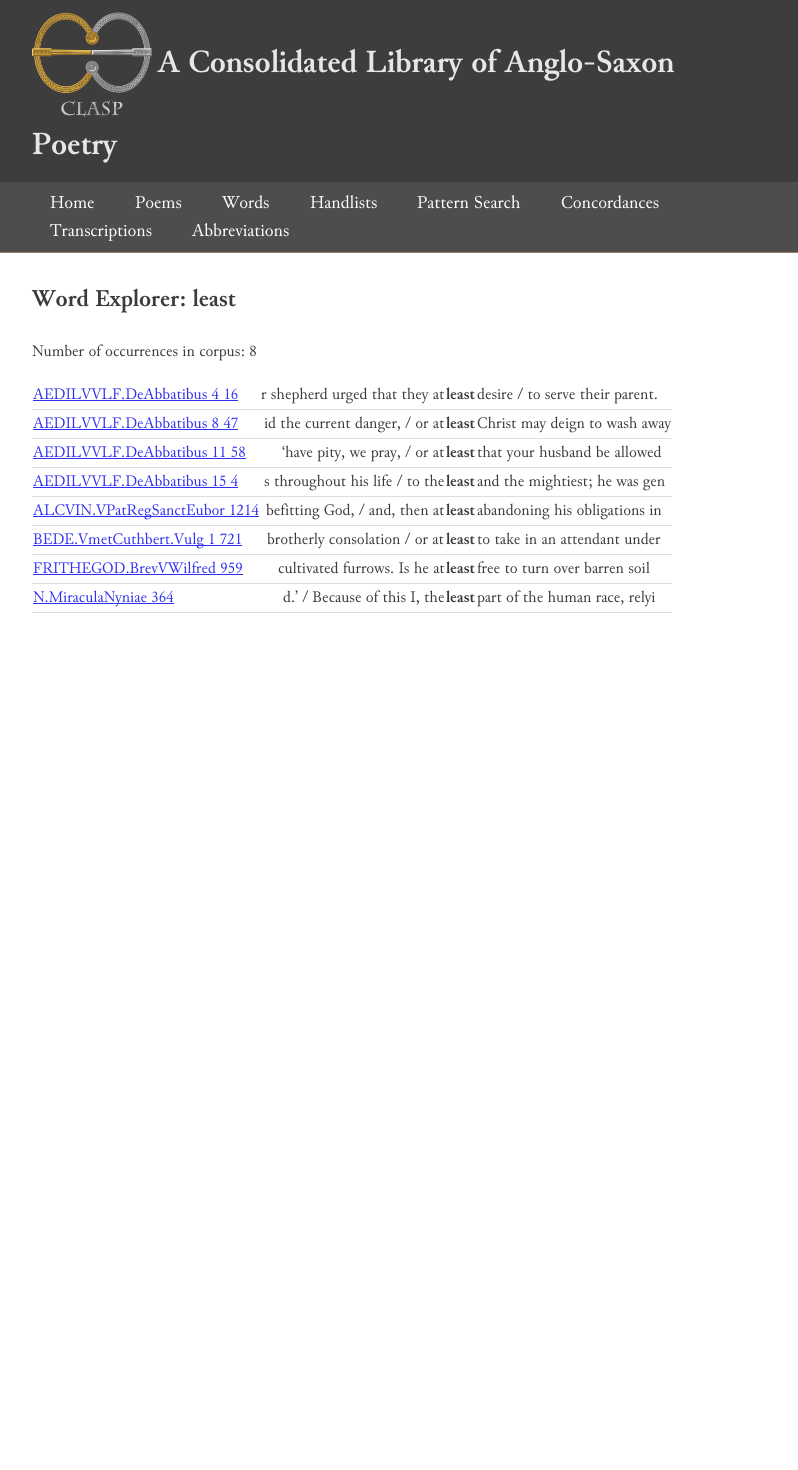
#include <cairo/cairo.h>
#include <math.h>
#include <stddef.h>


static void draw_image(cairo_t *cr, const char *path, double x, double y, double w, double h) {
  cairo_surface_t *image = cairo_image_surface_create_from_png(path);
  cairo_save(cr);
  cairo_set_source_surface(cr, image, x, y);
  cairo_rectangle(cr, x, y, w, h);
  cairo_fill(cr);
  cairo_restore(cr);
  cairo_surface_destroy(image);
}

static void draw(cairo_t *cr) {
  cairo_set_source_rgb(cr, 1, 1, 1);
  cairo_paint(cr);
  cairo_set_source_rgb(cr, 61 / 255.0, 61 / 255.0, 61 / 255.0);
  cairo_rectangle(cr, 0, 0, 798, 182);
  cairo_fill(cr);
  draw_image(cr, "images/1.png", 32, 12, 120, 106);
  cairo_set_source_rgb(cr, 77 / 255.0, 77 / 255.0, 77 / 255.0);
  cairo_rectangle(cr, 0, 182, 798, 70);
  cairo_fill(cr);
  cairo_set_source_rgb(cr, 156 / 255.0, 126 / 255.0, 104 / 255.0);
  cairo_rectangle(cr, 0, 252, 798, 1);
  cairo_fill(cr);
  cairo_set_source_rgb(cr, 48 / 255.0, 48 / 255.0, 240 / 255.0);
  cairo_rectangle(cr, 33, 400, 205, 1);
  cairo_fill(cr);
  cairo_set_source_rgb(cr, 221 / 255.0, 221 / 255.0, 221 / 255.0);
  cairo_rectangle(cr, 32, 409, 640, 1);
  cairo_fill(cr);
  cairo_set_source_rgb(cr, 48 / 255.0, 48 / 255.0, 240 / 255.0);
  cairo_rectangle(cr, 33, 429, 205, 1);
  cairo_fill(cr);
  cairo_set_source_rgb(cr, 221 / 255.0, 221 / 255.0, 221 / 255.0);
  cairo_rectangle(cr, 32, 438, 640, 1);
  cairo_fill(cr);
  cairo_set_source_rgb(cr, 48 / 255.0, 48 / 255.0, 240 / 255.0);
  cairo_rectangle(cr, 33, 458, 213, 1);
  cairo_fill(cr);
  cairo_set_source_rgb(cr, 221 / 255.0, 221 / 255.0, 221 / 255.0);
  cairo_rectangle(cr, 32, 467, 640, 1);
  cairo_fill(cr);
  cairo_set_source_rgb(cr, 48 / 255.0, 48 / 255.0, 240 / 255.0);
  cairo_rectangle(cr, 33, 487, 205, 1);
  cairo_fill(cr);
  cairo_set_source_rgb(cr, 221 / 255.0, 221 / 255.0, 221 / 255.0);
  cairo_rectangle(cr, 32, 496, 640, 1);
  cairo_fill(cr);
  cairo_set_source_rgb(cr, 48 / 255.0, 48 / 255.0, 240 / 255.0);
  cairo_rectangle(cr, 33, 516, 226, 1);
  cairo_fill(cr);
  cairo_set_source_rgb(cr, 221 / 255.0, 221 / 255.0, 221 / 255.0);
  cairo_rectangle(cr, 32, 525, 640, 1);
  cairo_fill(cr);
  cairo_set_source_rgb(cr, 48 / 255.0, 48 / 255.0, 240 / 255.0);
  cairo_rectangle(cr, 33, 545, 209, 1);
  cairo_fill(cr);
  cairo_set_source_rgb(cr, 221 / 255.0, 221 / 255.0, 221 / 255.0);
  cairo_rectangle(cr, 32, 554, 640, 1);
  cairo_fill(cr);
  cairo_set_source_rgb(cr, 48 / 255.0, 48 / 255.0, 240 / 255.0);
  cairo_rectangle(cr, 33, 574, 210, 1);
  cairo_fill(cr);
  cairo_set_source_rgb(cr, 221 / 255.0, 221 / 255.0, 221 / 255.0);
  cairo_rectangle(cr, 32, 583, 640, 1);
  cairo_fill(cr);
  cairo_set_source_rgb(cr, 48 / 255.0, 48 / 255.0, 240 / 255.0);
  cairo_rectangle(cr, 33, 603, 141, 1);
  cairo_fill(cr);
  cairo_set_source_rgb(cr, 221 / 255.0, 221 / 255.0, 221 / 255.0);
  cairo_rectangle(cr, 32, 612, 640, 1);
  cairo_fill(cr);
  cairo_select_font_face(cr, "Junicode", CAIRO_FONT_SLANT_NORMAL, CAIRO_FONT_WEIGHT_BOLD);
  cairo_set_font_size(cr, 32);
  cairo_set_source_rgb(cr, 230 / 255.0, 230 / 255.0, 230 / 255.0);
  cairo_move_to(cr, 158, 72);
  cairo_show_text(cr, "A Consolidated Library of Anglo-Saxon");
  cairo_move_to(cr, 32, 154);
  cairo_show_text(cr, "Poetry");
  cairo_select_font_face(cr, "Junicode", CAIRO_FONT_SLANT_NORMAL, CAIRO_FONT_WEIGHT_NORMAL);
  cairo_set_font_size(cr, 18);
  cairo_set_source_rgb(cr, 1, 1, 1);
  cairo_move_to(cr, 50, 208);
  cairo_show_text(cr, "Home");
  cairo_move_to(cr, 135, 208);
  cairo_show_text(cr, "Poems");
  cairo_move_to(cr, 222, 208);
  cairo_show_text(cr, "Words");
  cairo_move_to(cr, 310, 208);
  cairo_show_text(cr, "Handlists");
  cairo_move_to(cr, 417, 208);
  cairo_show_text(cr, "Pattern Search");
  cairo_move_to(cr, 561, 208);
  cairo_show_text(cr, "Concordances");
  cairo_move_to(cr, 50, 236);
  cairo_show_text(cr, "Transcriptions");
  cairo_move_to(cr, 192, 236);
  cairo_show_text(cr, "Abbreviations");
  cairo_select_font_face(cr, "Junicode", CAIRO_FONT_SLANT_NORMAL, CAIRO_FONT_WEIGHT_BOLD);
  cairo_set_font_size(cr, 24);
  cairo_set_source_rgb(cr, 59 / 255.0, 59 / 255.0, 59 / 255.0);
  cairo_move_to(cr, 32, 306);
  cairo_show_text(cr, "Word Explorer: least");
  cairo_select_font_face(cr, "Junicode", CAIRO_FONT_SLANT_NORMAL, CAIRO_FONT_WEIGHT_NORMAL);
  cairo_set_font_size(cr, 16);
  cairo_move_to(cr, 32, 356);
  cairo_show_text(cr, "Number of occurrences in corpus: 8");
  cairo_set_source_rgb(cr, 48 / 255.0, 48 / 255.0, 240 / 255.0);
  cairo_move_to(cr, 33, 399);
  cairo_show_text(cr, "AEDILVVLF.DeAbbatibus 4 16");
  cairo_set_source_rgb(cr, 59 / 255.0, 59 / 255.0, 59 / 255.0);
  cairo_move_to(cr, 261, 399);
  cairo_show_text(cr, "r shepherd urged that they at");
  cairo_select_font_face(cr, "Junicode", CAIRO_FONT_SLANT_NORMAL, CAIRO_FONT_WEIGHT_BOLD);
  cairo_move_to(cr, 446, 399);
  cairo_show_text(cr, "least");
  cairo_select_font_face(cr, "Junicode", CAIRO_FONT_SLANT_NORMAL, CAIRO_FONT_WEIGHT_NORMAL);
  cairo_move_to(cr, 477, 399);
  cairo_show_text(cr, "desire / to serve their parent.");
  cairo_set_source_rgb(cr, 48 / 255.0, 48 / 255.0, 240 / 255.0);
  cairo_move_to(cr, 33, 428);
  cairo_show_text(cr, "AEDILVVLF.DeAbbatibus 8 47");
  cairo_set_source_rgb(cr, 59 / 255.0, 59 / 255.0, 59 / 255.0);
  cairo_move_to(cr, 264, 428);
  cairo_show_text(cr, "id the current danger, / or at");
  cairo_select_font_face(cr, "Junicode", CAIRO_FONT_SLANT_NORMAL, CAIRO_FONT_WEIGHT_BOLD);
  cairo_move_to(cr, 446, 428);
  cairo_show_text(cr, "least");
  cairo_select_font_face(cr, "Junicode", CAIRO_FONT_SLANT_NORMAL, CAIRO_FONT_WEIGHT_NORMAL);
  cairo_move_to(cr, 477, 428);
  cairo_show_text(cr, "Christ may deign to wash away");
  cairo_set_source_rgb(cr, 48 / 255.0, 48 / 255.0, 240 / 255.0);
  cairo_move_to(cr, 33, 457);
  cairo_show_text(cr, "AEDILVVLF.DeAbbatibus 11 58");
  cairo_set_source_rgb(cr, 59 / 255.0, 59 / 255.0, 59 / 255.0);
  cairo_move_to(cr, 282, 457);
  cairo_show_text(cr, "‘have pity, we pray, / or at");
  cairo_select_font_face(cr, "Junicode", CAIRO_FONT_SLANT_NORMAL, CAIRO_FONT_WEIGHT_BOLD);
  cairo_move_to(cr, 446, 457);
  cairo_show_text(cr, "least");
  cairo_select_font_face(cr, "Junicode", CAIRO_FONT_SLANT_NORMAL, CAIRO_FONT_WEIGHT_NORMAL);
  cairo_move_to(cr, 477, 457);
  cairo_show_text(cr, "that your husband be allowed");
  cairo_set_source_rgb(cr, 48 / 255.0, 48 / 255.0, 240 / 255.0);
  cairo_move_to(cr, 33, 486);
  cairo_show_text(cr, "AEDILVVLF.DeAbbatibus 15 4");
  cairo_set_source_rgb(cr, 59 / 255.0, 59 / 255.0, 59 / 255.0);
  cairo_move_to(cr, 264, 486);
  cairo_show_text(cr, "s throughout his life / to the");
  cairo_select_font_face(cr, "Junicode", CAIRO_FONT_SLANT_NORMAL, CAIRO_FONT_WEIGHT_BOLD);
  cairo_move_to(cr, 446, 486);
  cairo_show_text(cr, "least");
  cairo_select_font_face(cr, "Junicode", CAIRO_FONT_SLANT_NORMAL, CAIRO_FONT_WEIGHT_NORMAL);
  cairo_move_to(cr, 477, 486);
  cairo_show_text(cr, "and the mightiest; he was gen");
  cairo_set_source_rgb(cr, 48 / 255.0, 48 / 255.0, 240 / 255.0);
  cairo_move_to(cr, 33, 515);
  cairo_show_text(cr, "ALCVIN.VPatRegSanctEubor 1214");
  cairo_set_source_rgb(cr, 59 / 255.0, 59 / 255.0, 59 / 255.0);
  cairo_move_to(cr, 266, 515);
  cairo_show_text(cr, "befitting God, / and, then at");
  cairo_select_font_face(cr, "Junicode", CAIRO_FONT_SLANT_NORMAL, CAIRO_FONT_WEIGHT_BOLD);
  cairo_move_to(cr, 446, 515);
  cairo_show_text(cr, "least");
  cairo_select_font_face(cr, "Junicode", CAIRO_FONT_SLANT_NORMAL, CAIRO_FONT_WEIGHT_NORMAL);
  cairo_move_to(cr, 477, 515);
  cairo_show_text(cr, "abandoning his obligations in");
  cairo_set_source_rgb(cr, 48 / 255.0, 48 / 255.0, 240 / 255.0);
  cairo_move_to(cr, 33, 544);
  cairo_show_text(cr, "BEDE.VmetCuthbert.Vulg 1 721");
  cairo_set_source_rgb(cr, 59 / 255.0, 59 / 255.0, 59 / 255.0);
  cairo_move_to(cr, 267, 544);
  cairo_show_text(cr, "brotherly consolation / or at");
  cairo_select_font_face(cr, "Junicode", CAIRO_FONT_SLANT_NORMAL, CAIRO_FONT_WEIGHT_BOLD);
  cairo_move_to(cr, 446, 544);
  cairo_show_text(cr, "least");
  cairo_select_font_face(cr, "Junicode", CAIRO_FONT_SLANT_NORMAL, CAIRO_FONT_WEIGHT_NORMAL);
  cairo_move_to(cr, 477, 544);
  cairo_show_text(cr, "to take in an attendant under");
  cairo_set_source_rgb(cr, 48 / 255.0, 48 / 255.0, 240 / 255.0);
  cairo_move_to(cr, 33, 573);
  cairo_show_text(cr, "FRITHEGOD.BrevVWilfred 959");
  cairo_set_source_rgb(cr, 59 / 255.0, 59 / 255.0, 59 / 255.0);
  cairo_move_to(cr, 278, 573);
  cairo_show_text(cr, "cultivated furrows. Is he at");
  cairo_select_font_face(cr, "Junicode", CAIRO_FONT_SLANT_NORMAL, CAIRO_FONT_WEIGHT_BOLD);
  cairo_move_to(cr, 446, 573);
  cairo_show_text(cr, "least");
  cairo_select_font_face(cr, "Junicode", CAIRO_FONT_SLANT_NORMAL, CAIRO_FONT_WEIGHT_NORMAL);
  cairo_move_to(cr, 477, 573);
  cairo_show_text(cr, "free to turn over barren soil");
  cairo_set_source_rgb(cr, 48 / 255.0, 48 / 255.0, 240 / 255.0);
  cairo_move_to(cr, 33, 602);
  cairo_show_text(cr, "N.MiraculaNyniae 364");
  cairo_set_source_rgb(cr, 59 / 255.0, 59 / 255.0, 59 / 255.0);
  cairo_move_to(cr, 283, 602);
  cairo_show_text(cr, "d.’ / Because of this I, the");
  cairo_select_font_face(cr, "Junicode", CAIRO_FONT_SLANT_NORMAL, CAIRO_FONT_WEIGHT_BOLD);
  cairo_move_to(cr, 446, 602);
  cairo_show_text(cr, "least");
  cairo_select_font_face(cr, "Junicode", CAIRO_FONT_SLANT_NORMAL, CAIRO_FONT_WEIGHT_NORMAL);
  cairo_move_to(cr, 477, 602);
  cairo_show_text(cr, "part of the human race, relyi");
}

int main(void) {
  cairo_surface_t *surface = cairo_image_surface_create(CAIRO_FORMAT_RGB24, 798, 1470);
  cairo_t *cr = cairo_create(surface);
  cairo_font_options_t *options = cairo_font_options_create();
  cairo_font_options_set_hint_metrics(options, CAIRO_HINT_METRICS_OFF);
  cairo_font_options_set_hint_style(options, CAIRO_HINT_STYLE_NONE);
  cairo_set_font_options(cr, options);
  cairo_set_miter_limit(cr, 4);
  draw(cr);
  cairo_surface_write_to_png(surface, "out.png");
  cairo_font_options_destroy(options);
  cairo_destroy(cr);
  cairo_surface_destroy(surface);
  return 0;
}
